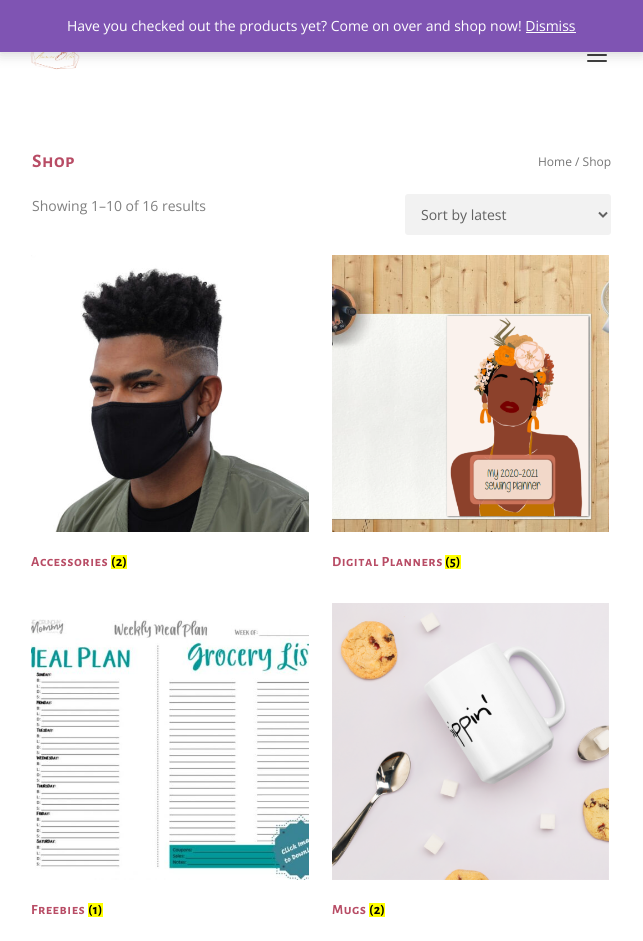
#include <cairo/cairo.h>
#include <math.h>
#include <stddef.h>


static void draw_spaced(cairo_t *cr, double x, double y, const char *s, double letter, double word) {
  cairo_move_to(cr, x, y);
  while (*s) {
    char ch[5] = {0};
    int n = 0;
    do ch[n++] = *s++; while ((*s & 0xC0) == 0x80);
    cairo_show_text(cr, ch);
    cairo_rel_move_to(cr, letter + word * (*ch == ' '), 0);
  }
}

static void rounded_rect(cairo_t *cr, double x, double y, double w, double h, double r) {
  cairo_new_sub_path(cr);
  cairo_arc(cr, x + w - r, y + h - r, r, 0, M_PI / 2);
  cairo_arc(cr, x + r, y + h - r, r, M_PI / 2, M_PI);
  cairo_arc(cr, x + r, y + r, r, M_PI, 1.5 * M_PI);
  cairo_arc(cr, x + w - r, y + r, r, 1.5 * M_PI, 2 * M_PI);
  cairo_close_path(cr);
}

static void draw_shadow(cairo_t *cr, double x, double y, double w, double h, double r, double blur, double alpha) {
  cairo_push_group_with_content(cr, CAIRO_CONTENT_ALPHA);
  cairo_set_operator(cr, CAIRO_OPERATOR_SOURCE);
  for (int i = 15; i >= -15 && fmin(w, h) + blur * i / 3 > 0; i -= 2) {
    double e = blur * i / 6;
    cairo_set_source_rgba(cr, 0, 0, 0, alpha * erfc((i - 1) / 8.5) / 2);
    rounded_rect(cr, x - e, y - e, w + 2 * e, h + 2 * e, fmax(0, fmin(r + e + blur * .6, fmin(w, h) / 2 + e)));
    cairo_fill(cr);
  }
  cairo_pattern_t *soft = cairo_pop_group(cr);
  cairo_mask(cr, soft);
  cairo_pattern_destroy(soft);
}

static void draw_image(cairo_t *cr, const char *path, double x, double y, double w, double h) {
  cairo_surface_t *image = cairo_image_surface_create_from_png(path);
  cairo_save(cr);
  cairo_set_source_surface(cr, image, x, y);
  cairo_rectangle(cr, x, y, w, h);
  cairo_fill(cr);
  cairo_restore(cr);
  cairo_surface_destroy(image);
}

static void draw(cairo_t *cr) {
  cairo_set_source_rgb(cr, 1, 1, 1);
  cairo_paint(cr);
  draw_image(cr, "images/1.png", 30, 52, 50, 18);
  cairo_set_source_rgb(cr, 64 / 255.0, 64 / 255.0, 64 / 255.0);
  rounded_rect(cr, 587, 54, 20, 2, 1);
  cairo_fill(cr);
  rounded_rect(cr, 587, 60, 20, 2, 1);
  cairo_fill(cr);
  cairo_set_source_rgb(cr, 0, 0, 0);
  draw_shadow(cr, 0, 1, 643, 52, 0, 7, 0.2);
  cairo_set_source_rgb(cr, 127 / 255.0, 84 / 255.0, 179 / 255.0);
  cairo_rectangle(cr, 0, 0, 643, 52);
  cairo_fill(cr);
  cairo_set_source_rgb(cr, 1, 1, 1);
  cairo_rectangle(cr, 526, 32, 50, 1);
  cairo_fill(cr);
  cairo_set_source_rgb(cr, 242 / 255.0, 242 / 255.0, 242 / 255.0);
  rounded_rect(cr, 405, 194, 206, 41, 3);
  cairo_fill(cr);
  cairo_new_path(cr);
  cairo_move_to(cr, 599, 212.5);
  cairo_line_to(cr, 603, 216.5);
  cairo_line_to(cr, 607, 212.5);
  cairo_set_source_rgb(cr, 97 / 255.0, 97 / 255.0, 97 / 255.0);
  cairo_stroke(cr);
  draw_image(cr, "images/2.png", 31, 255, 278, 277);
  cairo_set_source_rgb(cr, 1, 1, 0);
  cairo_rectangle(cr, 111, 555, 16, 14);
  cairo_fill(cr);
  draw_image(cr, "images/3.png", 332, 255, 277, 277);
  cairo_rectangle(cr, 445, 555, 16, 14);
  cairo_fill(cr);
  draw_image(cr, "images/4.png", 31, 619, 278, 261);
  cairo_rectangle(cr, 88, 903, 15, 14);
  cairo_fill(cr);
  draw_image(cr, "images/5.png", 332, 603, 277, 277);
  cairo_rectangle(cr, 369, 903, 16, 14);
  cairo_fill(cr);
  cairo_select_font_face(cr, "Open Sans", CAIRO_FONT_SLANT_NORMAL, CAIRO_FONT_WEIGHT_NORMAL);
  cairo_set_font_size(cr, 14);
  cairo_set_source_rgb(cr, 1, 1, 1);
  cairo_move_to(cr, 67, 31);
  cairo_show_text(cr, "Have you checked out the products yet? Come on over and shop now! Dismiss");
  cairo_select_font_face(cr, "Alegreya Sans SC", CAIRO_FONT_SLANT_NORMAL, CAIRO_FONT_WEIGHT_BOLD);
  cairo_set_font_size(cr, 19);
  cairo_set_source_rgb(cr, 184 / 255.0, 76 / 255.0, 101 / 255.0);
  draw_spaced(cr, 32, 167, "Shop", 0.5, 0);
  cairo_select_font_face(cr, "Open Sans", CAIRO_FONT_SLANT_NORMAL, CAIRO_FONT_WEIGHT_NORMAL);
  cairo_set_font_size(cr, 12);
  cairo_set_source_rgb(cr, 118 / 255.0, 118 / 255.0, 118 / 255.0);
  cairo_move_to(cr, 538, 166);
  cairo_show_text(cr, "Home / Shop");
  cairo_set_font_size(cr, 14);
  cairo_set_source_rgb(cr, 128 / 255.0, 128 / 255.0, 128 / 255.0);
  cairo_move_to(cr, 32, 211);
  cairo_show_text(cr, "Showing 1–10 of 16 results");
  cairo_set_source_rgb(cr, 97 / 255.0, 97 / 255.0, 97 / 255.0);
  cairo_move_to(cr, 421, 220);
  cairo_show_text(cr, "Sort by latest");
  cairo_select_font_face(cr, "Alegreya Sans SC", CAIRO_FONT_SLANT_NORMAL, CAIRO_FONT_WEIGHT_BOLD);
  cairo_set_source_rgb(cr, 184 / 255.0, 76 / 255.0, 101 / 255.0);
  draw_spaced(cr, 31, 566, "Accessories", 0.5, 0);
  cairo_set_source_rgb(cr, 0, 0, 0);
  draw_spaced(cr, 111, 566, "(2)", 0.5, 0);
  cairo_set_source_rgb(cr, 184 / 255.0, 76 / 255.0, 101 / 255.0);
  draw_spaced(cr, 332, 566, "Digital Planners", 0.5, 0);
  cairo_set_source_rgb(cr, 0, 0, 0);
  draw_spaced(cr, 445, 566, "(5)", 0.5, 0);
  cairo_set_source_rgb(cr, 184 / 255.0, 76 / 255.0, 101 / 255.0);
  draw_spaced(cr, 31, 914, "Freebies", 0.5, 0);
  cairo_set_source_rgb(cr, 0, 0, 0);
  draw_spaced(cr, 88, 914, "(1)", 0.5, 0);
  cairo_set_source_rgb(cr, 184 / 255.0, 76 / 255.0, 101 / 255.0);
  draw_spaced(cr, 332, 914, "Mugs", 0.5, 0);
  cairo_set_source_rgb(cr, 0, 0, 0);
  draw_spaced(cr, 369, 914, "(2)", 0.5, 0);
}

int main(void) {
  cairo_surface_t *surface = cairo_image_surface_create(CAIRO_FORMAT_RGB24, 643, 941);
  cairo_t *cr = cairo_create(surface);
  cairo_font_options_t *options = cairo_font_options_create();
  cairo_font_options_set_hint_metrics(options, CAIRO_HINT_METRICS_OFF);
  cairo_font_options_set_hint_style(options, CAIRO_HINT_STYLE_NONE);
  cairo_set_font_options(cr, options);
  cairo_set_miter_limit(cr, 4);
  draw(cr);
  cairo_surface_write_to_png(surface, "out.png");
  cairo_font_options_destroy(options);
  cairo_destroy(cr);
  cairo_surface_destroy(surface);
  return 0;
}
